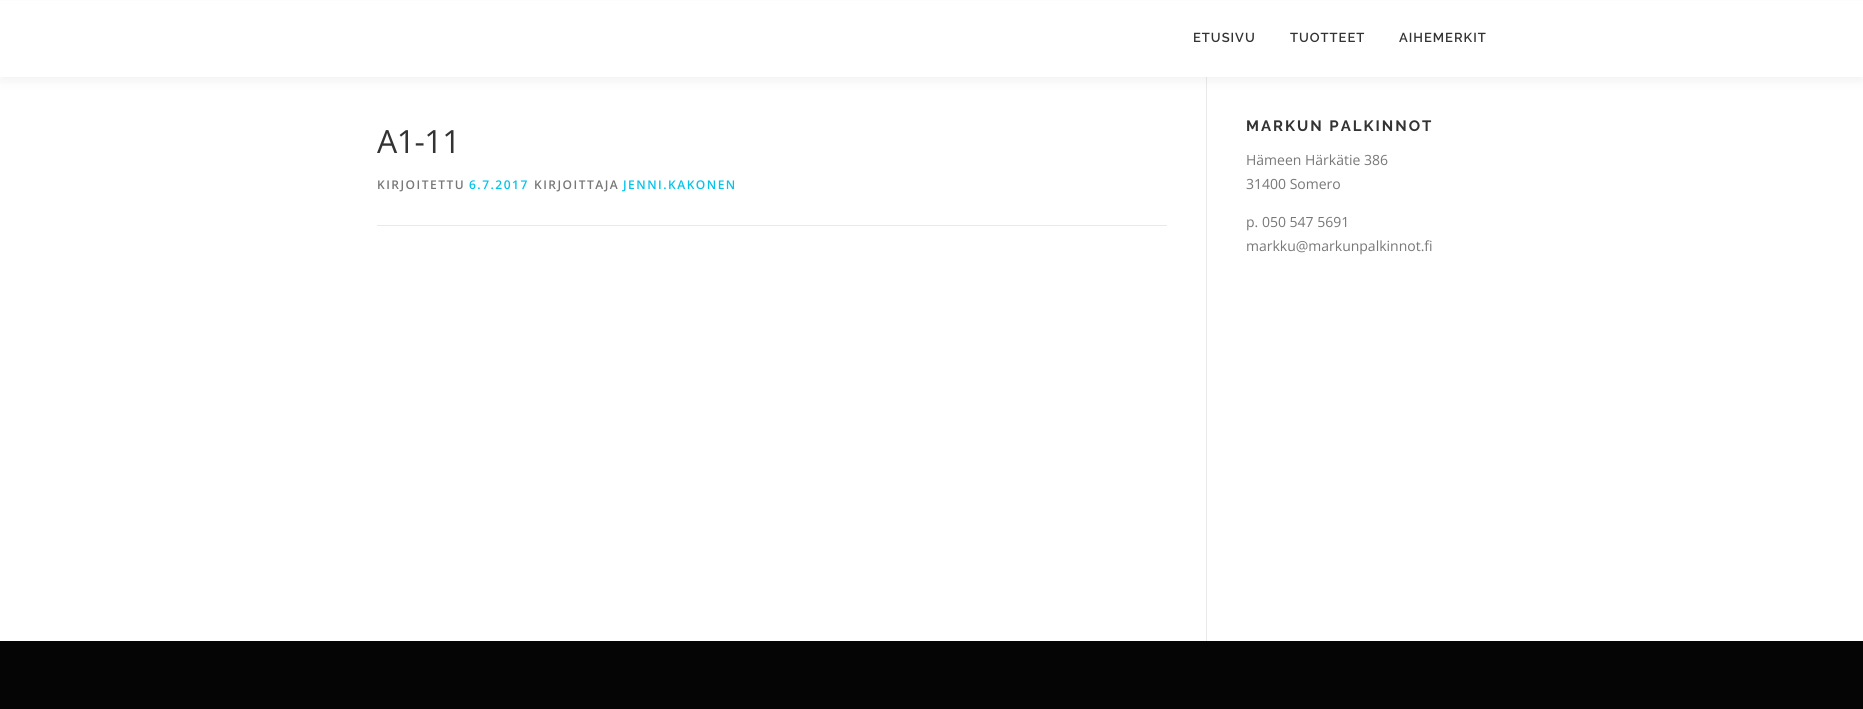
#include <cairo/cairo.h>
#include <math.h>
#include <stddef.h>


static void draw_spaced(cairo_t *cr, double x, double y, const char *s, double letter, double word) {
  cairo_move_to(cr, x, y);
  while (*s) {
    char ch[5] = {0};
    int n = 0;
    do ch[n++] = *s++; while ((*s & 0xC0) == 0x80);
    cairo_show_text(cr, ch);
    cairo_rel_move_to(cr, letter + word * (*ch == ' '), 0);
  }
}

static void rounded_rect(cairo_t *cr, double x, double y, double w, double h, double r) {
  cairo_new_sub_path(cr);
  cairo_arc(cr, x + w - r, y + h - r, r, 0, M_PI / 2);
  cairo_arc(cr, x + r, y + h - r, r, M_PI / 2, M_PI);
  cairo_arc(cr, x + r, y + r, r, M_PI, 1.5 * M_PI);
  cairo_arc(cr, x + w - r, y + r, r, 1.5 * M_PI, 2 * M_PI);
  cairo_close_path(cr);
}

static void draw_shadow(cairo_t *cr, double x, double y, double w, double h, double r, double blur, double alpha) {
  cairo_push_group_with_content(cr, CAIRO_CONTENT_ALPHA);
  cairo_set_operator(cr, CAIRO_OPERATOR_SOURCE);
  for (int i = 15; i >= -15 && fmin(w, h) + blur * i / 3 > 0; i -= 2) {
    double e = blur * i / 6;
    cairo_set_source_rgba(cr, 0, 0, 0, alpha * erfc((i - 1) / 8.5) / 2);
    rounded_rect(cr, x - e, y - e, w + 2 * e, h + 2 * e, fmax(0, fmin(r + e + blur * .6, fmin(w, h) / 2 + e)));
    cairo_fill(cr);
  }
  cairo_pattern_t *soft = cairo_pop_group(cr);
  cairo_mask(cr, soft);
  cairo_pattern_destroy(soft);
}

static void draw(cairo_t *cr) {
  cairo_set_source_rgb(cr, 1, 1, 1);
  cairo_paint(cr);
  cairo_set_source_rgb(cr, 233 / 255.0, 233 / 255.0, 233 / 255.0);
  cairo_rectangle(cr, 1206, 77, 1, 564);
  cairo_fill(cr);
  cairo_set_source_rgb(cr, 50 / 255.0, 50 / 255.0, 50 / 255.0);
  draw_shadow(cr, 0, 5, 1863, 77, 0, 5, 0.06);
  cairo_set_source_rgb(cr, 1, 1, 1);
  cairo_rectangle(cr, 0, 1, 1863, 76);
  cairo_fill(cr);
  cairo_set_source_rgb(cr, 233 / 255.0, 233 / 255.0, 233 / 255.0);
  cairo_rectangle(cr, 377, 225, 790, 1);
  cairo_fill(cr);
  cairo_set_source_rgb(cr, 5 / 255.0, 5 / 255.0, 5 / 255.0);
  cairo_rectangle(cr, 0, 641, 1863, 68);
  cairo_fill(cr);
  cairo_select_font_face(cr, "Raleway SemiBold", CAIRO_FONT_SLANT_NORMAL, CAIRO_FONT_WEIGHT_NORMAL);
  cairo_set_font_size(cr, 13);
  cairo_set_source_rgb(cr, 51 / 255.0, 51 / 255.0, 51 / 255.0);
  draw_spaced(cr, 1193, 42, "ETUSIVU", 1, 0);
  draw_spaced(cr, 1290, 42, "TUOTTEET", 1, 0);
  draw_spaced(cr, 1399, 42, "AIHEMERKIT", 1, 0);
  cairo_select_font_face(cr, "Open Sans", CAIRO_FONT_SLANT_NORMAL, CAIRO_FONT_WEIGHT_NORMAL);
  cairo_set_font_size(cr, 32);
  draw_spaced(cr, 377, 153, "A1-11", -0.5, 0);
  cairo_select_font_face(cr, "Open Sans SemiBold", CAIRO_FONT_SLANT_NORMAL, CAIRO_FONT_WEIGHT_NORMAL);
  cairo_set_font_size(cr, 12);
  cairo_set_source_rgb(cr, 119 / 255.0, 119 / 255.0, 119 / 255.0);
  draw_spaced(cr, 377, 189, "KIRJOITETTU", 1.5, 0);
  cairo_set_source_rgb(cr, 3 / 255.0, 196 / 255.0, 235 / 255.0);
  draw_spaced(cr, 469, 189, "6.7.2017", 1.5, 0);
  cairo_set_source_rgb(cr, 119 / 255.0, 119 / 255.0, 119 / 255.0);
  draw_spaced(cr, 534, 189, "KIRJOITTAJA", 1.5, 0);
  cairo_set_source_rgb(cr, 3 / 255.0, 196 / 255.0, 235 / 255.0);
  draw_spaced(cr, 623, 189, "JENNI.KAKONEN", 1.5, 0);
  cairo_select_font_face(cr, "Raleway", CAIRO_FONT_SLANT_NORMAL, CAIRO_FONT_WEIGHT_BOLD);
  cairo_set_font_size(cr, 15);
  cairo_set_source_rgb(cr, 51 / 255.0, 51 / 255.0, 51 / 255.0);
  draw_spaced(cr, 1246, 131, "MARKUN PALKINNOT", 2, 0);
  cairo_select_font_face(cr, "Open Sans", CAIRO_FONT_SLANT_NORMAL, CAIRO_FONT_WEIGHT_NORMAL);
  cairo_set_font_size(cr, 14);
  cairo_set_source_rgb(cr, 119 / 255.0, 119 / 255.0, 119 / 255.0);
  cairo_move_to(cr, 1246, 165);
  cairo_show_text(cr, "Hämeen Härkätie 386");
  cairo_move_to(cr, 1246, 189);
  cairo_show_text(cr, "31400 Somero");
  cairo_move_to(cr, 1246, 227);
  cairo_show_text(cr, "p. 050 547 5691");
  cairo_move_to(cr, 1246, 251);
  cairo_show_text(cr, "markku@markunpalkinnot.fi");
}

int main(void) {
  cairo_surface_t *surface = cairo_image_surface_create(CAIRO_FORMAT_RGB24, 1863, 709);
  cairo_t *cr = cairo_create(surface);
  cairo_font_options_t *options = cairo_font_options_create();
  cairo_font_options_set_hint_metrics(options, CAIRO_HINT_METRICS_OFF);
  cairo_font_options_set_hint_style(options, CAIRO_HINT_STYLE_NONE);
  cairo_set_font_options(cr, options);
  cairo_set_miter_limit(cr, 4);
  draw(cr);
  cairo_surface_write_to_png(surface, "out.png");
  cairo_font_options_destroy(options);
  cairo_destroy(cr);
  cairo_surface_destroy(surface);
  return 0;
}
